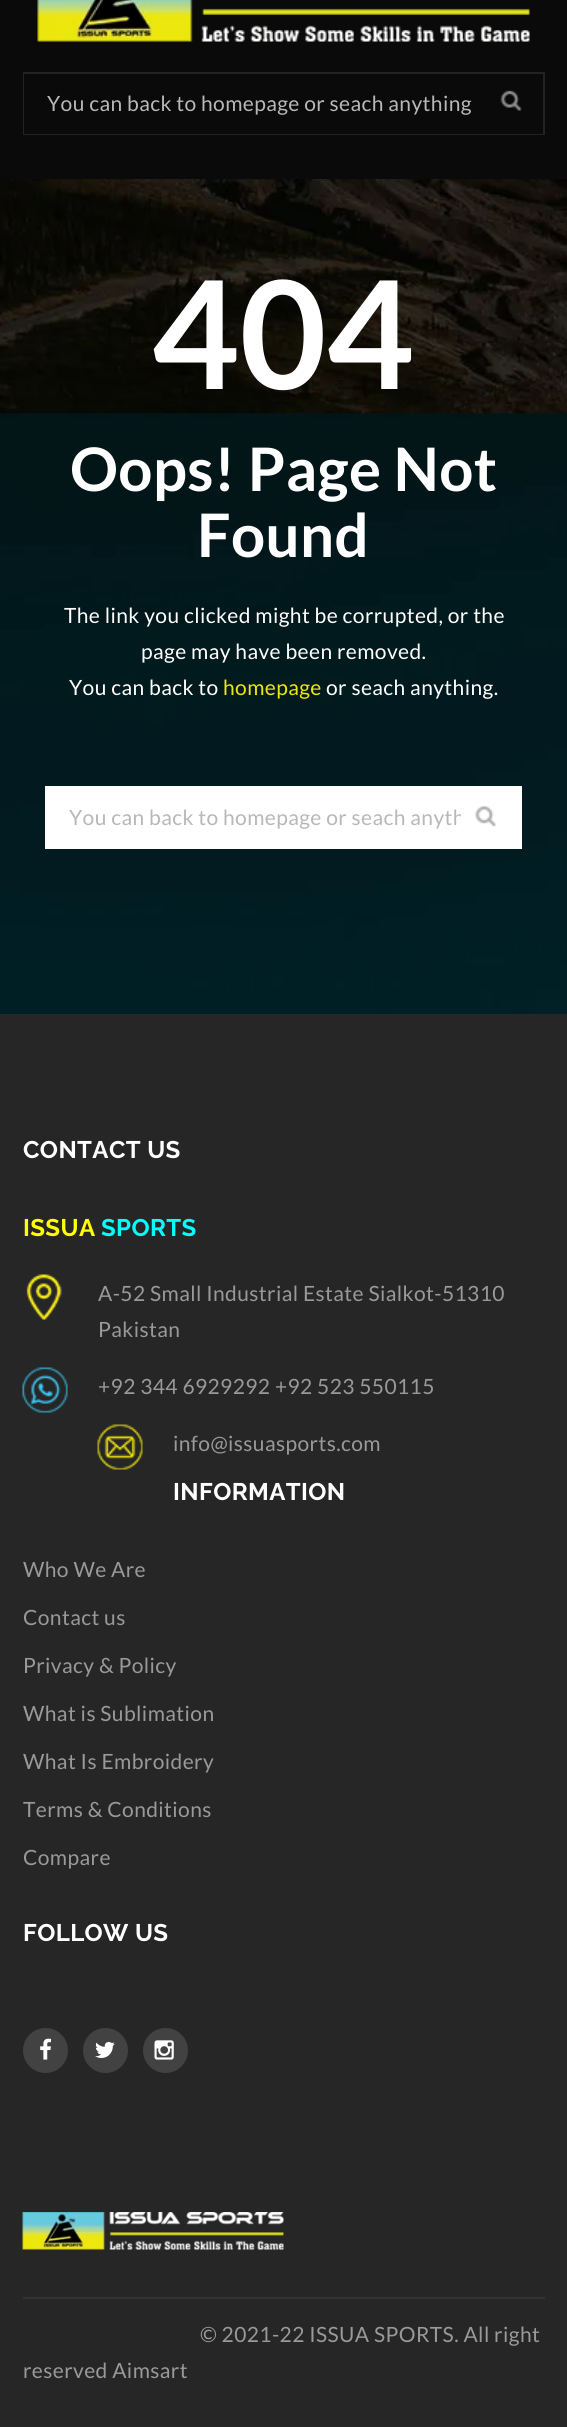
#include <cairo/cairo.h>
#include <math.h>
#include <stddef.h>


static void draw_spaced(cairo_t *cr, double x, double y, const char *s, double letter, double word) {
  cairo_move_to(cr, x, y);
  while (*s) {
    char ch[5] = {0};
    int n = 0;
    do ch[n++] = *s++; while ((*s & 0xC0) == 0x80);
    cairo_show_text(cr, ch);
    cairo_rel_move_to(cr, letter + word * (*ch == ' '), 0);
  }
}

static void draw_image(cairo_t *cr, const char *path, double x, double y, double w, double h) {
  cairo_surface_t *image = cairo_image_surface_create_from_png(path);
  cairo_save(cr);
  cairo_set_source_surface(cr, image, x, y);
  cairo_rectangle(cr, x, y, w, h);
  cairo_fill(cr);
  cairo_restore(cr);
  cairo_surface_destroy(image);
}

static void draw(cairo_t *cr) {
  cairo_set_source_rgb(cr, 10 / 255.0, 10 / 255.0, 10 / 255.0);
  cairo_paint(cr);
  draw_image(cr, "images/1.png", 37, 0, 493, 42);
  cairo_rectangle(cr, 24, 73, 520, 61);
  cairo_set_source_rgb(cr, 35 / 255.0, 35 / 255.0, 35 / 255.0);
  cairo_stroke(cr);
  cairo_set_source_rgb(cr, 10 / 255.0, 10 / 255.0, 10 / 255.0);
  cairo_rectangle(cr, 24, 74, 519, 60);
  cairo_fill(cr);
  draw_image(cr, "images/2.png", 500, 90, 22, 21);
  draw_image(cr, "images/3.png", 0, 179, 567, 835);
  cairo_set_source_rgb(cr, 1, 1, 1);
  cairo_rectangle(cr, 45, 786, 477, 63);
  cairo_fill(cr);
  draw_image(cr, "images/4.png", 475, 806, 22, 21);
  cairo_set_source_rgb(cr, 38 / 255.0, 38 / 255.0, 38 / 255.0);
  cairo_rectangle(cr, 0, 1014, 567, 1413);
  cairo_fill(cr);
  draw_image(cr, "images/5.png", 26, 1274, 36, 46);
  draw_image(cr, "images/6.png", 22, 1367, 46, 46);
  draw_image(cr, "images/7.png", 97, 1424, 46, 46);
  cairo_set_source_rgb(cr, 66 / 255.0, 66 / 255.0, 66 / 255.0);
  cairo_arc(cr, 45.5, 2050.5, 22.5, 0, 2 * M_PI);
  cairo_fill(cr);
  draw_image(cr, "images/8.png", 40, 2038, 12, 22);
  cairo_arc(cr, 105.5, 2050.5, 22.5, 0, 2 * M_PI);
  cairo_fill(cr);
  draw_image(cr, "images/9.png", 95, 2041, 20, 17);
  cairo_arc(cr, 165.5, 2050.5, 22.5, 0, 2 * M_PI);
  cairo_fill(cr);
  draw_image(cr, "images/10.png", 154, 2040, 20, 20);
  cairo_set_source_rgb(cr, 50 / 255.0, 50 / 255.0, 50 / 255.0);
  cairo_rectangle(cr, 23, 2297, 522, 2);
  cairo_fill(cr);
  draw_image(cr, "images/11.png", 22, 2212, 262, 38);
  cairo_select_font_face(cr, "Lato", CAIRO_FONT_SLANT_NORMAL, CAIRO_FONT_WEIGHT_NORMAL);
  cairo_set_font_size(cr, 21);
  cairo_set_source_rgb(cr, 184 / 255.0, 184 / 255.0, 184 / 255.0);
  draw_spaced(cr, 47, 111, "You can back to homepage or seach anything", 0.4, 0);
  cairo_select_font_face(cr, "Lato", CAIRO_FONT_SLANT_NORMAL, CAIRO_FONT_WEIGHT_BOLD);
  cairo_set_font_size(cr, 150);
  cairo_set_source_rgb(cr, 1, 1, 1);
  draw_spaced(cr, 152, 389, "404", 0.4, 0);
  cairo_set_font_size(cr, 60);
  draw_spaced(cr, 70, 491, "Oops! Page Not", 0.4, 0);
  draw_spaced(cr, 197, 557, "Found", 0.4, 0);
  cairo_select_font_face(cr, "Lato", CAIRO_FONT_SLANT_NORMAL, CAIRO_FONT_WEIGHT_NORMAL);
  cairo_set_font_size(cr, 21);
  draw_spaced(cr, 64, 623, "The link you clicked might be corrupted, or the", 0.4, 0);
  draw_spaced(cr, 141, 659, "page may have been removed.", 0.4, 0);
  draw_spaced(cr, 69, 695, "You can back to", 0.4, 0);
  cairo_set_source_rgb(cr, 236 / 255.0, 231 / 255.0, 12 / 255.0);
  draw_spaced(cr, 223, 695, "homepage", 0.4, 0);
  cairo_set_source_rgb(cr, 1, 1, 1);
  draw_spaced(cr, 326, 695, "or seach anything.", 0.4, 0);
  cairo_save(cr);
  cairo_rectangle(cr, 69, 804, 392, 26);
  cairo_clip(cr);
  cairo_set_source_rgb(cr, 184 / 255.0, 184 / 255.0, 184 / 255.0);
  draw_spaced(cr, 69, 825, "You can back to homepage or seach anyth", 0.4, 0);
  cairo_restore(cr);
  cairo_select_font_face(cr, "Raleway", CAIRO_FONT_SLANT_NORMAL, CAIRO_FONT_WEIGHT_BOLD);
  cairo_set_font_size(cr, 24);
  draw_spaced(cr, 23, 1158, "CONTACT US", 0.4, 0);
  cairo_set_source_rgb(cr, 1, 1, 0);
  draw_spaced(cr, 23, 1236, "ISSUA", 0.4, 0);
  cairo_set_source_rgb(cr, 0, 1, 1);
  draw_spaced(cr, 101, 1236, "SPORTS", 0.4, 0);
  cairo_select_font_face(cr, "Lato", CAIRO_FONT_SLANT_NORMAL, CAIRO_FONT_WEIGHT_NORMAL);
  cairo_set_font_size(cr, 21);
  cairo_set_source_rgb(cr, 153 / 255.0, 153 / 255.0, 153 / 255.0);
  draw_spaced(cr, 98, 1301, "A-52 Small Industrial Estate Sialkot-51310", 0.4, 0);
  draw_spaced(cr, 98, 1337, "Pakistan", 0.4, 0);
  draw_spaced(cr, 98, 1394, "+92 344 6929292 +92 523 550115", 0.4, 0);
  draw_spaced(cr, 173, 1451, "info@issuasports.com", 0.4, 0);
  cairo_select_font_face(cr, "Raleway", CAIRO_FONT_SLANT_NORMAL, CAIRO_FONT_WEIGHT_BOLD);
  cairo_set_font_size(cr, 24);
  cairo_set_source_rgb(cr, 1, 1, 1);
  draw_spaced(cr, 173, 1500, "INFORMATION", 0.4, 0);
  cairo_select_font_face(cr, "Lato", CAIRO_FONT_SLANT_NORMAL, CAIRO_FONT_WEIGHT_NORMAL);
  cairo_set_font_size(cr, 21);
  cairo_set_source_rgb(cr, 153 / 255.0, 153 / 255.0, 153 / 255.0);
  draw_spaced(cr, 23, 1577, "Who We Are", 0.4, 0);
  draw_spaced(cr, 23, 1625, "Contact us", 0.4, 0);
  draw_spaced(cr, 23, 1673, "Privacy & Policy", 0.4, 0);
  draw_spaced(cr, 23, 1721, "What is Sublimation", 0.4, 0);
  draw_spaced(cr, 23, 1769, "What Is Embroidery", 0.4, 0);
  draw_spaced(cr, 23, 1817, "Terms & Conditions", 0.4, 0);
  draw_spaced(cr, 23, 1865, "Compare", 0.4, 0);
  cairo_select_font_face(cr, "Raleway", CAIRO_FONT_SLANT_NORMAL, CAIRO_FONT_WEIGHT_BOLD);
  cairo_set_font_size(cr, 24);
  cairo_set_source_rgb(cr, 1, 1, 1);
  draw_spaced(cr, 23, 1941, "FOLLOW US", 0.4, 0);
  cairo_select_font_face(cr, "Lato", CAIRO_FONT_SLANT_NORMAL, CAIRO_FONT_WEIGHT_NORMAL);
  cairo_set_font_size(cr, 21);
  cairo_set_source_rgb(cr, 153 / 255.0, 153 / 255.0, 153 / 255.0);
  draw_spaced(cr, 200, 2342, "© 2021-22 ISSUA SPORTS. All right", 0.4, 0);
  draw_spaced(cr, 23, 2378, "reserved Aimsart", 0.4, 0);
}

int main(void) {
  cairo_surface_t *surface = cairo_image_surface_create(CAIRO_FORMAT_RGB24, 567, 2427);
  cairo_t *cr = cairo_create(surface);
  cairo_font_options_t *options = cairo_font_options_create();
  cairo_font_options_set_hint_metrics(options, CAIRO_HINT_METRICS_OFF);
  cairo_font_options_set_hint_style(options, CAIRO_HINT_STYLE_NONE);
  cairo_set_font_options(cr, options);
  cairo_set_miter_limit(cr, 4);
  draw(cr);
  cairo_surface_write_to_png(surface, "out.png");
  cairo_font_options_destroy(options);
  cairo_destroy(cr);
  cairo_surface_destroy(surface);
  return 0;
}
